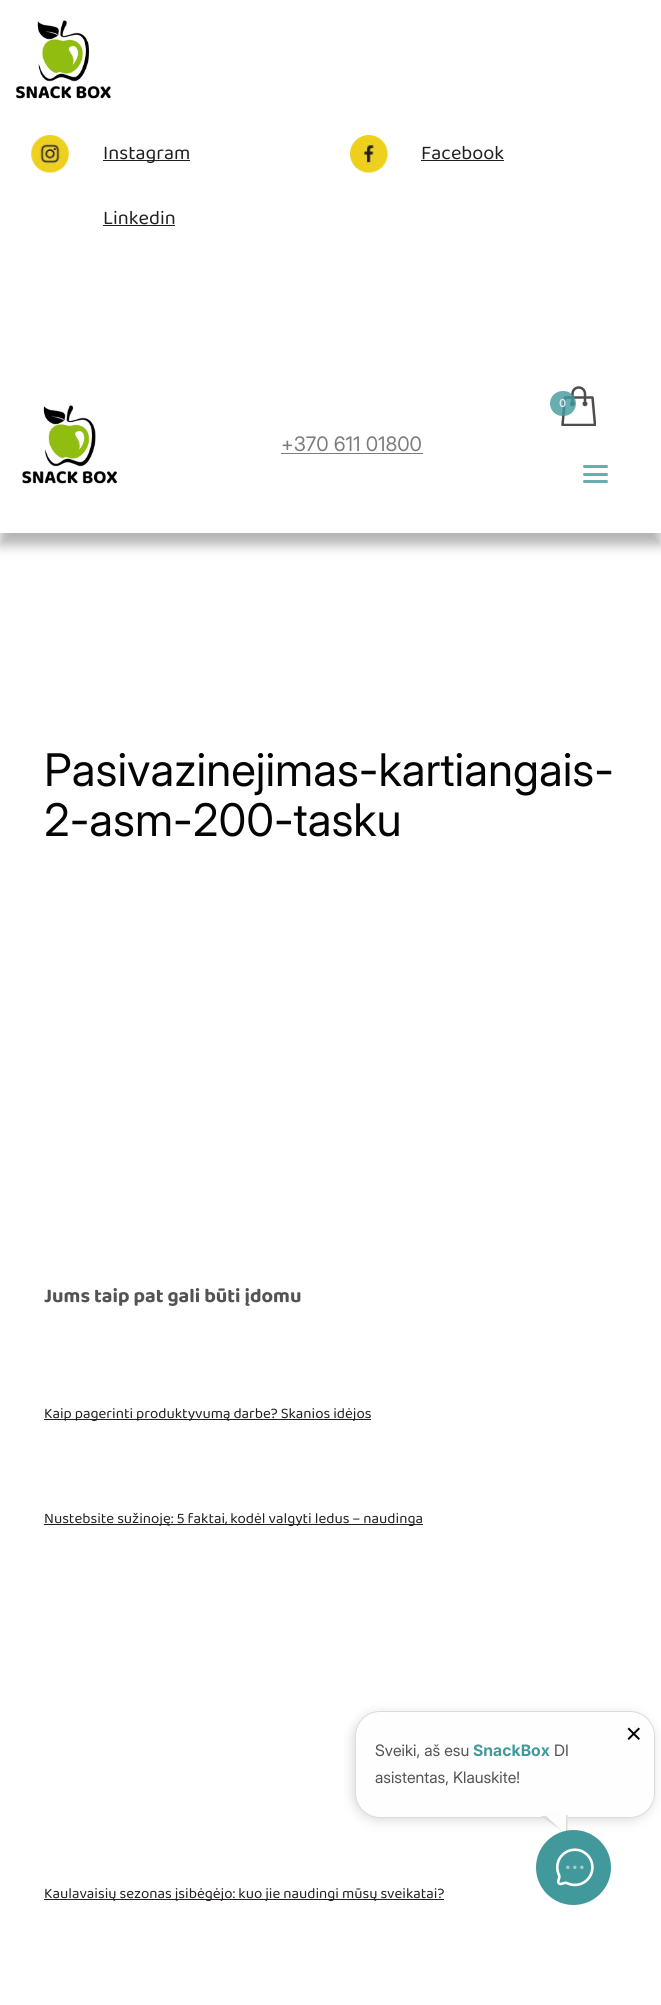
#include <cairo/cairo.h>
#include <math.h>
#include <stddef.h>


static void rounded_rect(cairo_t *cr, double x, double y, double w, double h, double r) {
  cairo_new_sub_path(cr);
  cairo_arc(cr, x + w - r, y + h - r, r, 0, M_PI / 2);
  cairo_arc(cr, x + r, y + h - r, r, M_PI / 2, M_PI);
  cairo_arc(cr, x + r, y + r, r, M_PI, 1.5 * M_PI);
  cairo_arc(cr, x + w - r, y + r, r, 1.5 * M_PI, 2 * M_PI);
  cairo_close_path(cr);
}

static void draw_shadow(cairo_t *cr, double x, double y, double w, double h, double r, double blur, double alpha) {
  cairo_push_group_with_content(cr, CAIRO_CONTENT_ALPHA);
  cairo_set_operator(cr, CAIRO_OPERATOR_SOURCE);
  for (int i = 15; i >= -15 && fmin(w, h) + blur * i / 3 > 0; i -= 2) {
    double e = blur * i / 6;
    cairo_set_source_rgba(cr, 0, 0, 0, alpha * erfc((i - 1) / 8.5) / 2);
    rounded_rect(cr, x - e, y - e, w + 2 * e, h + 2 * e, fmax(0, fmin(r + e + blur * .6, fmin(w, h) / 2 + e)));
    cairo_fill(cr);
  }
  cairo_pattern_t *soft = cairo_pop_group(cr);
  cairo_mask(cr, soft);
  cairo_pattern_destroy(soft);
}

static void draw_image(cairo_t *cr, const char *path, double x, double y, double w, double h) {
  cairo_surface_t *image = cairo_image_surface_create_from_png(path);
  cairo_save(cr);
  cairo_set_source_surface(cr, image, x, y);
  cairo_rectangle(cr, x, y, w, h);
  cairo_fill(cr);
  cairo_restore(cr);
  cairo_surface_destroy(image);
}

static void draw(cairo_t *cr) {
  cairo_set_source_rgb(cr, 1, 1, 1);
  cairo_paint(cr);
  draw_image(cr, "images/1.png", 16, 20, 95, 79);
  draw_image(cr, "images/2.png", 31, 135, 38, 38);
  cairo_set_source_rgb(cr, 35 / 255.0, 31 / 255.0, 32 / 255.0);
  cairo_rectangle(cr, 103, 160, 87, 1);
  cairo_fill(cr);
  cairo_rectangle(cr, 103, 225, 72, 1);
  cairo_fill(cr);
  draw_image(cr, "images/3.png", 350, 135, 38, 38);
  cairo_rectangle(cr, 421, 160, 83, 1);
  cairo_fill(cr);
  cairo_save(cr);
  cairo_set_fill_rule(cr, CAIRO_FILL_RULE_EVEN_ODD);
  cairo_new_path(cr);
  cairo_move_to(cr, 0, 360);
  cairo_line_to(cr, 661, 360);
  cairo_line_to(cr, 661, 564);
  cairo_line_to(cr, 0, 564);
  cairo_close_path(cr);
  cairo_move_to(cr, 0, 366);
  cairo_line_to(cr, 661, 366);
  cairo_line_to(cr, 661, 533);
  cairo_line_to(cr, 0, 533);
  cairo_close_path(cr);
  cairo_clip(cr);
  cairo_set_source_rgb(cr, 0, 0, 0);
  draw_shadow(cr, 0, 379, 661, 166, 0, 6, 0.3);
  cairo_restore(cr);
  draw_image(cr, "images/4.png", 561, 386, 35, 40);
  cairo_set_source_rgba(cr, 66 / 255.0, 153 / 255.0, 155 / 255.0, 0.8);
  rounded_rect(cr, 550, 391, 26, 25, 12.5);
  cairo_fill(cr);
  cairo_set_source_rgb(cr, 104 / 255.0, 173 / 255.0, 175 / 255.0);
  rounded_rect(cr, 583, 465, 25, 3, 1.5);
  cairo_fill(cr);
  rounded_rect(cr, 583, 473, 25, 3, 1.5);
  cairo_fill(cr);
  rounded_rect(cr, 583, 480, 25, 3, 1.5);
  cairo_fill(cr);
  draw_image(cr, "images/5.png", 22, 405, 96, 79);
  cairo_set_source_rgb(cr, 124 / 255.0, 124 / 255.0, 124 / 255.0);
  cairo_rectangle(cr, 281, 453, 142, 1);
  cairo_fill(cr);
  cairo_set_source_rgb(cr, 35 / 255.0, 31 / 255.0, 32 / 255.0);
  cairo_rectangle(cr, 44, 1419, 327, 1);
  cairo_fill(cr);
  cairo_rectangle(cr, 44, 1524, 379, 1);
  cairo_fill(cr);
  cairo_rectangle(cr, 44, 1899, 400, 1);
  cairo_fill(cr);
  cairo_set_source_rgb(cr, 160 / 255.0, 160 / 255.0, 160 / 255.0);
  draw_shadow(cr, 353, 1714, 300, 106, 25, 6, 0.4);
  cairo_set_source_rgb(cr, 254 / 255.0, 254 / 255.0, 254 / 255.0);
  rounded_rect(cr, 355.5, 1711.5, 299, 106, 24.5);
  cairo_fill_preserve(cr);
  cairo_set_source_rgb(cr, 219 / 255.0, 219 / 255.0, 219 / 255.0);
  cairo_set_line_width(cr, 1);
  cairo_stroke(cr);
  draw_image(cr, "images/6.png", 627, 1727, 13, 13);
  cairo_new_path(cr);
  cairo_move_to(cr, 567.5, 1815);
  cairo_line_to(cr, 567.5, 1835);
  cairo_line_to(cr, 541, 1816);
  cairo_close_path(cr);
  cairo_fill(cr);
  cairo_set_source_rgb(cr, 253 / 255.0, 253 / 255.0, 253 / 255.0);
  cairo_new_path(cr);
  cairo_move_to(cr, 566, 1811);
  cairo_line_to(cr, 566, 1835);
  cairo_line_to(cr, 542.5, 1812.5);
  cairo_close_path(cr);
  cairo_fill(cr);
  cairo_set_source_rgb(cr, 66 / 255.0, 153 / 255.0, 155 / 255.0);
  cairo_arc(cr, 573.5, 1867.5, 37.5, 0, 2 * M_PI);
  cairo_fill(cr);
  draw_image(cr, "images/7.png", 556, 1848, 38, 39);
  cairo_select_font_face(cr, "Baloo Paaji 2", CAIRO_FONT_SLANT_NORMAL, CAIRO_FONT_WEIGHT_NORMAL);
  cairo_set_font_size(cr, 20);
  cairo_set_source_rgb(cr, 35 / 255.0, 31 / 255.0, 32 / 255.0);
  cairo_move_to(cr, 103, 159);
  cairo_show_text(cr, "Instagram");
  cairo_move_to(cr, 103, 224);
  cairo_show_text(cr, "Linkedin");
  cairo_move_to(cr, 421, 159);
  cairo_show_text(cr, "Facebook");
  cairo_select_font_face(cr, "Inter SemiBold", CAIRO_FONT_SLANT_NORMAL, CAIRO_FONT_WEIGHT_NORMAL);
  cairo_set_font_size(cr, 11);
  cairo_set_source_rgb(cr, 222 / 255.0, 236 / 255.0, 236 / 255.0);
  cairo_move_to(cr, 559, 407);
  cairo_show_text(cr, "0");
  cairo_select_font_face(cr, "Inter", CAIRO_FONT_SLANT_NORMAL, CAIRO_FONT_WEIGHT_NORMAL);
  cairo_set_font_size(cr, 20);
  cairo_set_source_rgb(cr, 124 / 255.0, 124 / 255.0, 124 / 255.0);
  cairo_move_to(cr, 281, 451);
  cairo_show_text(cr, "+370 611 01800");
  cairo_set_font_size(cr, 45);
  cairo_set_source_rgb(cr, 5 / 255.0, 5 / 255.0, 5 / 255.0);
  cairo_move_to(cr, 44, 786);
  cairo_show_text(cr, "Pasivazinejimas-kartiangais-");
  cairo_move_to(cr, 44, 836);
  cairo_show_text(cr, "2-asm-200-tasku");
  cairo_select_font_face(cr, "Baloo Paaji 2", CAIRO_FONT_SLANT_NORMAL, CAIRO_FONT_WEIGHT_BOLD);
  cairo_set_font_size(cr, 20);
  cairo_set_source_rgb(cr, 83 / 255.0, 83 / 255.0, 83 / 255.0);
  cairo_move_to(cr, 44, 1302);
  cairo_show_text(cr, "Jums taip pat gali būti įdomu");
  cairo_select_font_face(cr, "Baloo Paaji 2", CAIRO_FONT_SLANT_NORMAL, CAIRO_FONT_WEIGHT_NORMAL);
  cairo_set_font_size(cr, 15);
  cairo_set_source_rgb(cr, 35 / 255.0, 31 / 255.0, 32 / 255.0);
  cairo_move_to(cr, 44, 1418);
  cairo_show_text(cr, "Kaip pagerinti produktyvumą darbe? Skanios idėjos");
  cairo_move_to(cr, 44, 1523);
  cairo_show_text(cr, "Nustebsite sužinoję: 5 faktai, kodėl valgyti ledus – naudinga");
  cairo_move_to(cr, 44, 1898);
  cairo_show_text(cr, "Kaulavaisių sezonas įsibėgėjo: kuo jie naudingi mūsų sveikatai?");
  cairo_select_font_face(cr, "Inter", CAIRO_FONT_SLANT_NORMAL, CAIRO_FONT_WEIGHT_NORMAL);
  cairo_set_font_size(cr, 15.75);
  cairo_set_source_rgb(cr, 83 / 255.0, 83 / 255.0, 83 / 255.0);
  cairo_move_to(cr, 375, 1756);
  cairo_show_text(cr, "Sveiki, aš esu");
  cairo_select_font_face(cr, "Inter", CAIRO_FONT_SLANT_NORMAL, CAIRO_FONT_WEIGHT_BOLD);
  cairo_set_source_rgb(cr, 66 / 255.0, 153 / 255.0, 155 / 255.0);
  cairo_move_to(cr, 473, 1756);
  cairo_show_text(cr, "SnackBox");
  cairo_select_font_face(cr, "Inter", CAIRO_FONT_SLANT_NORMAL, CAIRO_FONT_WEIGHT_NORMAL);
  cairo_set_source_rgb(cr, 83 / 255.0, 83 / 255.0, 83 / 255.0);
  cairo_move_to(cr, 554, 1756);
  cairo_show_text(cr, "DI");
  cairo_move_to(cr, 375, 1783);
  cairo_show_text(cr, "asistentas, Klauskite!");
}

int main(void) {
  cairo_surface_t *surface = cairo_image_surface_create(CAIRO_FORMAT_RGB24, 661, 2005);
  cairo_t *cr = cairo_create(surface);
  cairo_font_options_t *options = cairo_font_options_create();
  cairo_font_options_set_hint_metrics(options, CAIRO_HINT_METRICS_OFF);
  cairo_font_options_set_hint_style(options, CAIRO_HINT_STYLE_NONE);
  cairo_set_font_options(cr, options);
  cairo_set_miter_limit(cr, 4);
  draw(cr);
  cairo_surface_write_to_png(surface, "out.png");
  cairo_font_options_destroy(options);
  cairo_destroy(cr);
  cairo_surface_destroy(surface);
  return 0;
}
